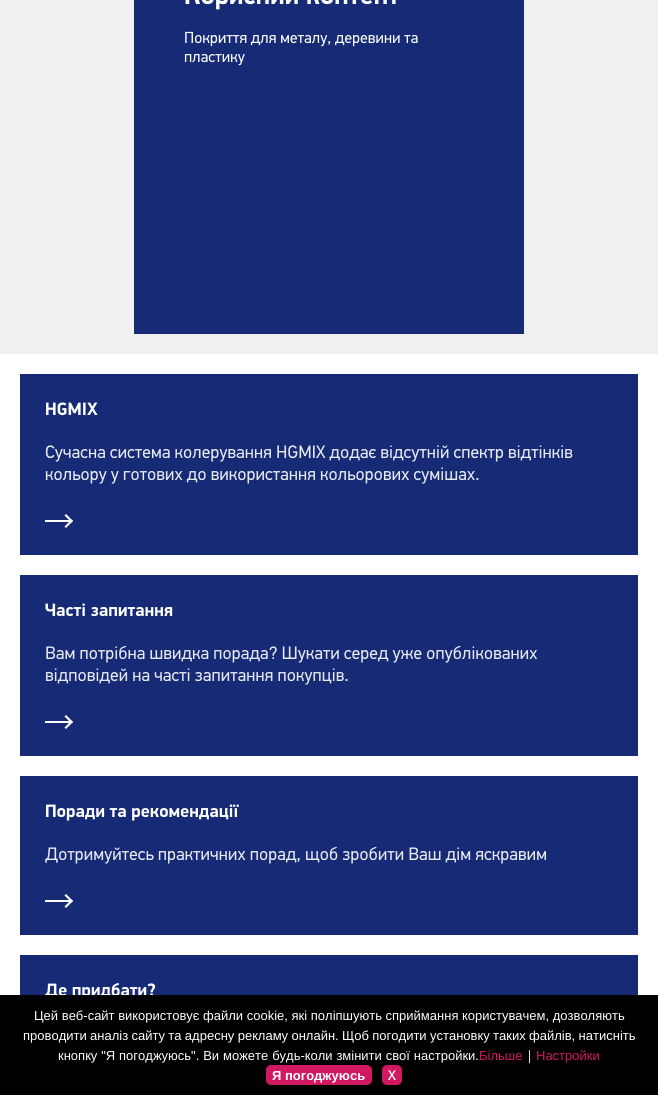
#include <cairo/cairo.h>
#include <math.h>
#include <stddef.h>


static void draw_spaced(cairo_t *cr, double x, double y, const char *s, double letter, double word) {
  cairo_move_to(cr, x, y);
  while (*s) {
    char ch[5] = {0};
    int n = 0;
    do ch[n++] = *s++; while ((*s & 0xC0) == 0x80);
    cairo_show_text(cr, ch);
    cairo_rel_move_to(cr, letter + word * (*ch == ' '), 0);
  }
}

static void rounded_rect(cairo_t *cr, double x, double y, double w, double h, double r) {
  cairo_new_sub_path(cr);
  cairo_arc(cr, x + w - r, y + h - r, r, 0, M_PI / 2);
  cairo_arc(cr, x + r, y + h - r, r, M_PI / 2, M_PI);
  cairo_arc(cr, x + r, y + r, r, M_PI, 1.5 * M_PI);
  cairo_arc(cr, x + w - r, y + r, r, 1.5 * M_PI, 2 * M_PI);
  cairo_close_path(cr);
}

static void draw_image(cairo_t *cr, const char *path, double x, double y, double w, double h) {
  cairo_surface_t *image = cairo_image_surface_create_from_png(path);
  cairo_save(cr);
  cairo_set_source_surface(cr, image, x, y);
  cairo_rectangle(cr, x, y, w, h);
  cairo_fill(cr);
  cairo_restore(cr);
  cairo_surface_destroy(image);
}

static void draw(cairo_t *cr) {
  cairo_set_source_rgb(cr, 240 / 255.0, 240 / 255.0, 241 / 255.0);
  cairo_paint(cr);
  cairo_set_source_rgb(cr, 22 / 255.0, 42 / 255.0, 117 / 255.0);
  cairo_rectangle(cr, 134, 0, 390, 334);
  cairo_fill(cr);
  draw_image(cr, "images/1.png", 185, 0, 211, 10);
  draw_image(cr, "images/2.png", 185, 31, 233, 16);
  draw_image(cr, "images/3.png", 184, 54, 61, 12);
  cairo_set_source_rgb(cr, 1, 1, 1);
  cairo_rectangle(cr, 0, 354, 658, 641);
  cairo_fill(cr);
  cairo_set_source_rgb(cr, 22 / 255.0, 42 / 255.0, 117 / 255.0);
  cairo_rectangle(cr, 20, 374, 618, 181);
  cairo_fill(cr);
  draw_image(cr, "images/4.png", 46, 402, 52, 14);
  draw_image(cr, "images/5.png", 45, 445, 528, 17);
  draw_image(cr, "images/6.png", 45, 467, 434, 17);
  cairo_set_source_rgb(cr, 1, 1, 1);
  cairo_rectangle(cr, 45, 520, 25, 2);
  cairo_fill(cr);
  cairo_new_path(cr);
  cairo_move_to(cr, 66, 514);
  cairo_line_to(cr, 73, 521);
  cairo_line_to(cr, 71.5, 522.5);
  cairo_line_to(cr, 64.5, 515.5);
  cairo_close_path(cr);
  cairo_fill(cr);
  cairo_new_path(cr);
  cairo_move_to(cr, 71.5, 519.5);
  cairo_line_to(cr, 73, 521);
  cairo_line_to(cr, 66, 528);
  cairo_line_to(cr, 64.5, 526.5);
  cairo_close_path(cr);
  cairo_fill(cr);
  cairo_set_source_rgb(cr, 22 / 255.0, 42 / 255.0, 117 / 255.0);
  cairo_rectangle(cr, 20, 575, 618, 181);
  cairo_fill(cr);
  draw_image(cr, "images/7.png", 45, 603, 128, 14);
  draw_image(cr, "images/8.png", 46, 645, 492, 18);
  draw_image(cr, "images/9.png", 46, 668, 302, 17);
  cairo_set_source_rgb(cr, 1, 1, 1);
  cairo_rectangle(cr, 45, 721, 25, 2);
  cairo_fill(cr);
  cairo_new_path(cr);
  cairo_move_to(cr, 66, 715);
  cairo_line_to(cr, 73, 722);
  cairo_line_to(cr, 71.5, 723.5);
  cairo_line_to(cr, 64.5, 716.5);
  cairo_close_path(cr);
  cairo_fill(cr);
  cairo_new_path(cr);
  cairo_move_to(cr, 71.5, 720.5);
  cairo_line_to(cr, 73, 722);
  cairo_line_to(cr, 66, 729);
  cairo_line_to(cr, 64.5, 727.5);
  cairo_close_path(cr);
  cairo_fill(cr);
  cairo_set_source_rgb(cr, 22 / 255.0, 42 / 255.0, 117 / 255.0);
  cairo_rectangle(cr, 20, 776, 618, 159);
  cairo_fill(cr);
  draw_image(cr, "images/10.png", 46, 804, 193, 17);
  draw_image(cr, "images/11.png", 45, 846, 501, 18);
  cairo_set_source_rgb(cr, 1, 1, 1);
  cairo_rectangle(cr, 45, 900, 25, 2);
  cairo_fill(cr);
  cairo_new_path(cr);
  cairo_move_to(cr, 66, 894);
  cairo_line_to(cr, 73, 901);
  cairo_line_to(cr, 71.5, 902.5);
  cairo_line_to(cr, 64.5, 895.5);
  cairo_close_path(cr);
  cairo_fill(cr);
  cairo_new_path(cr);
  cairo_move_to(cr, 71.5, 899.5);
  cairo_line_to(cr, 73, 901);
  cairo_line_to(cr, 66, 908);
  cairo_line_to(cr, 64.5, 906.5);
  cairo_close_path(cr);
  cairo_fill(cr);
  cairo_set_source_rgb(cr, 22 / 255.0, 42 / 255.0, 117 / 255.0);
  cairo_rectangle(cr, 20, 955, 618, 40);
  cairo_fill(cr);
  draw_image(cr, "images/12.png", 45, 982, 111, 13);
  cairo_set_source_rgb(cr, 0, 0, 0);
  cairo_rectangle(cr, 0, 995, 658, 100);
  cairo_fill(cr);
  cairo_set_source_rgb(cr, 210 / 255.0, 24 / 255.0, 96 / 255.0);
  rounded_rect(cr, 266, 1065, 106, 20, 5);
  cairo_fill(cr);
  rounded_rect(cr, 382, 1065, 20, 20, 5);
  cairo_fill(cr);
  cairo_select_font_face(cr, "Liberation Sans", CAIRO_FONT_SLANT_NORMAL, CAIRO_FONT_WEIGHT_NORMAL);
  cairo_set_font_size(cr, 13);
  cairo_set_source_rgb(cr, 1, 1, 1);
  cairo_move_to(cr, 34, 1020);
  cairo_show_text(cr, "Цей веб-сайт використовує файли cookie, які поліпшують сприймання користувачем, дозволяють");
  draw_spaced(cr, 23, 1040, "проводити аналіз сайту та адресну рекламу онлайн. Щоб погодити установку таких файлів, натисніть", 0, -0.25);
  draw_spaced(cr, 58, 1060, "кнопку \"Я погоджуюсь\". Ви можете будь-коли змінити свої настройки.", 0, 0.25);
  cairo_set_source_rgb(cr, 210 / 255.0, 24 / 255.0, 96 / 255.0);
  cairo_move_to(cr, 479, 1060);
  cairo_show_text(cr, "Більше");
  cairo_select_font_face(cr, "Open Sans", CAIRO_FONT_SLANT_NORMAL, CAIRO_FONT_WEIGHT_NORMAL);
  cairo_set_source_rgb(cr, 1, 1, 1);
  cairo_move_to(cr, 526, 1060);
  cairo_show_text(cr, "|");
  cairo_select_font_face(cr, "Liberation Sans", CAIRO_FONT_SLANT_NORMAL, CAIRO_FONT_WEIGHT_NORMAL);
  cairo_set_source_rgb(cr, 210 / 255.0, 24 / 255.0, 96 / 255.0);
  cairo_move_to(cr, 536, 1060);
  cairo_show_text(cr, "Настройки");
  cairo_select_font_face(cr, "Liberation Sans", CAIRO_FONT_SLANT_NORMAL, CAIRO_FONT_WEIGHT_BOLD);
  cairo_set_source_rgb(cr, 1, 1, 1);
  cairo_move_to(cr, 272, 1080);
  cairo_show_text(cr, "Я погоджуюсь");
  cairo_select_font_face(cr, "Open Sans", CAIRO_FONT_SLANT_NORMAL, CAIRO_FONT_WEIGHT_BOLD);
  cairo_move_to(cr, 388, 1080);
  cairo_show_text(cr, "X");
}

int main(void) {
  cairo_surface_t *surface = cairo_image_surface_create(CAIRO_FORMAT_RGB24, 658, 1095);
  cairo_t *cr = cairo_create(surface);
  cairo_font_options_t *options = cairo_font_options_create();
  cairo_font_options_set_hint_metrics(options, CAIRO_HINT_METRICS_OFF);
  cairo_font_options_set_hint_style(options, CAIRO_HINT_STYLE_NONE);
  cairo_set_font_options(cr, options);
  cairo_set_miter_limit(cr, 4);
  draw(cr);
  cairo_surface_write_to_png(surface, "out.png");
  cairo_font_options_destroy(options);
  cairo_destroy(cr);
  cairo_surface_destroy(surface);
  return 0;
}
